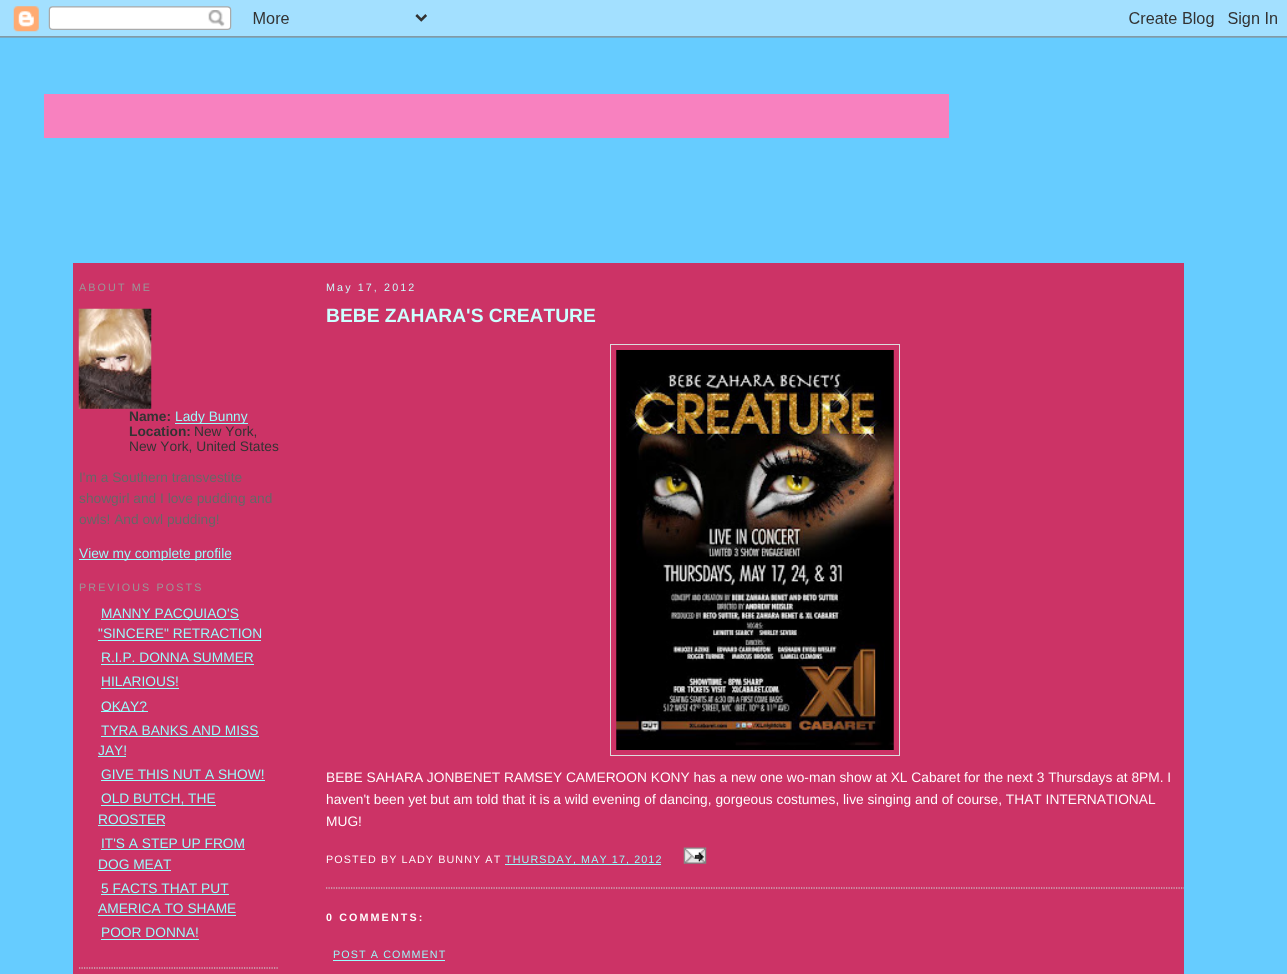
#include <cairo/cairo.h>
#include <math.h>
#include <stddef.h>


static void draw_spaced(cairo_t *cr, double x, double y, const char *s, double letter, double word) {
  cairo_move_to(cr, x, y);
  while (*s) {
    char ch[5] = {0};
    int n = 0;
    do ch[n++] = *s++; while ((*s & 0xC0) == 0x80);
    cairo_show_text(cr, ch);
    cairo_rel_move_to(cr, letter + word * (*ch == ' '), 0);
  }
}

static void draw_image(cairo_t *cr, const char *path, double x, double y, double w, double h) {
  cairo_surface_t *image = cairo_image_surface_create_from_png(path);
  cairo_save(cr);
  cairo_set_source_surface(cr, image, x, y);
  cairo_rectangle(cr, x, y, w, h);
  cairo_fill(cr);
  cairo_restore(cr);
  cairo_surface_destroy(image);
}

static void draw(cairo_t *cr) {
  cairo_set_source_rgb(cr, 102 / 255.0, 204 / 255.0, 1);
  cairo_paint(cr);
  draw_image(cr, "images/1.png", 0, 0, 1287, 38);
  cairo_set_source_rgb(cr, 248 / 255.0, 129 / 255.0, 191 / 255.0);
  cairo_rectangle(cr, 44, 94, 905, 44);
  cairo_fill(cr);
  cairo_set_source_rgb(cr, 204 / 255.0, 51 / 255.0, 102 / 255.0);
  cairo_rectangle(cr, 73, 263, 1111, 711);
  cairo_fill(cr);
  draw_image(cr, "images/2.png", 78, 308, 74, 101);
  cairo_set_source_rgb(cr, 153 / 255.0, 1, 1);
  cairo_rectangle(cr, 175, 423, 73, 1);
  cairo_fill(cr);
  cairo_rectangle(cr, 79, 559, 152, 1);
  cairo_fill(cr);
  cairo_new_path(cr);
  cairo_move_to(cr, 79, 968);
  cairo_line_to(cr, 279, 968);
  cairo_set_source_rgb(cr, 204 / 255.0, 204 / 255.0, 204 / 255.0);
  cairo_set_line_width(cr, 1.2);
  cairo_set_dash(cr, (double[]){1.25, 1.25}, 2, 0);
  cairo_stroke(cr);
  cairo_set_source_rgb(cr, 153 / 255.0, 1, 1);
  cairo_rectangle(cr, 101, 619, 138, 1);
  cairo_fill(cr);
  cairo_rectangle(cr, 98, 640, 163, 1);
  cairo_fill(cr);
  cairo_rectangle(cr, 101, 664, 153, 1);
  cairo_fill(cr);
  cairo_rectangle(cr, 101, 688, 78, 1);
  cairo_fill(cr);
  cairo_rectangle(cr, 101, 711, 47, 1);
  cairo_fill(cr);
  cairo_rectangle(cr, 101, 736, 158, 1);
  cairo_fill(cr);
  cairo_rectangle(cr, 98, 756, 28, 1);
  cairo_fill(cr);
  cairo_rectangle(cr, 101, 780, 164, 1);
  cairo_fill(cr);
  cairo_rectangle(cr, 101, 805, 115, 1);
  cairo_fill(cr);
  cairo_rectangle(cr, 98, 825, 67, 1);
  cairo_fill(cr);
  cairo_rectangle(cr, 101, 849, 144, 1);
  cairo_fill(cr);
  cairo_rectangle(cr, 98, 870, 73, 1);
  cairo_fill(cr);
  cairo_rectangle(cr, 101, 894, 128, 1);
  cairo_fill(cr);
  cairo_rectangle(cr, 98, 915, 138, 1);
  cairo_fill(cr);
  cairo_rectangle(cr, 101, 939, 98, 1);
  cairo_fill(cr);
  cairo_new_path(cr);
  cairo_move_to(cr, 326, 888);
  cairo_line_to(cr, 1184, 888);
  cairo_set_source_rgb(cr, 204 / 255.0, 204 / 255.0, 204 / 255.0);
  cairo_stroke(cr);
  cairo_rectangle(cr, 610.5, 344.5, 289, 411);
  cairo_set_source_rgb(cr, 221 / 255.0, 221 / 255.0, 221 / 255.0);
  cairo_set_line_width(cr, 1);
  cairo_set_dash(cr, NULL, 0, 0);
  cairo_stroke(cr);
  draw_image(cr, "images/3.png", 616, 350, 278, 400);
  cairo_set_source_rgb(cr, 153 / 255.0, 1, 1);
  cairo_rectangle(cr, 505, 864, 156, 1);
  cairo_fill(cr);
  draw_image(cr, "images/4.png", 683, 847, 24, 17);
  cairo_rectangle(cr, 333, 960, 112, 1);
  cairo_fill(cr);
  cairo_select_font_face(cr, "Liberation Sans", CAIRO_FONT_SLANT_NORMAL, CAIRO_FONT_WEIGHT_NORMAL);
  cairo_set_font_size(cr, 10.75);
  cairo_set_source_rgb(cr, 153 / 255.0, 153 / 255.0, 153 / 255.0);
  draw_spaced(cr, 79, 291, "ABOUT ME", 2.1, 0);
  cairo_select_font_face(cr, "Liberation Sans", CAIRO_FONT_SLANT_NORMAL, CAIRO_FONT_WEIGHT_BOLD);
  cairo_set_font_size(cr, 13.75);
  cairo_set_source_rgb(cr, 51 / 255.0, 51 / 255.0, 51 / 255.0);
  cairo_move_to(cr, 129, 421);
  cairo_show_text(cr, "Name:");
  cairo_select_font_face(cr, "Liberation Sans", CAIRO_FONT_SLANT_NORMAL, CAIRO_FONT_WEIGHT_NORMAL);
  cairo_set_source_rgb(cr, 153 / 255.0, 1, 1);
  cairo_move_to(cr, 175, 421);
  cairo_show_text(cr, "Lady Bunny");
  cairo_select_font_face(cr, "Liberation Sans", CAIRO_FONT_SLANT_NORMAL, CAIRO_FONT_WEIGHT_BOLD);
  cairo_set_source_rgb(cr, 51 / 255.0, 51 / 255.0, 51 / 255.0);
  cairo_move_to(cr, 129, 436);
  cairo_show_text(cr, "Location:");
  cairo_select_font_face(cr, "Liberation Sans", CAIRO_FONT_SLANT_NORMAL, CAIRO_FONT_WEIGHT_NORMAL);
  cairo_move_to(cr, 194, 436);
  cairo_show_text(cr, "New York,");
  cairo_move_to(cr, 129, 451);
  cairo_show_text(cr, "New York, United States");
  cairo_set_source_rgb(cr, 102 / 255.0, 102 / 255.0, 102 / 255.0);
  cairo_move_to(cr, 79, 482);
  cairo_show_text(cr, "I'm a Southern transvestite");
  cairo_move_to(cr, 79, 503);
  cairo_show_text(cr, "showgirl and I love pudding and");
  cairo_move_to(cr, 79, 524);
  cairo_show_text(cr, "owls! And owl pudding!");
  cairo_set_source_rgb(cr, 153 / 255.0, 1, 1);
  cairo_move_to(cr, 79, 558);
  cairo_show_text(cr, "View my complete profile");
  cairo_set_font_size(cr, 10.75);
  cairo_set_source_rgb(cr, 153 / 255.0, 153 / 255.0, 153 / 255.0);
  draw_spaced(cr, 79, 591, "PREVIOUS POSTS", 2.1, 0);
  cairo_set_font_size(cr, 13.75);
  cairo_set_source_rgb(cr, 153 / 255.0, 1, 1);
  cairo_move_to(cr, 101, 618);
  cairo_show_text(cr, "MANNY PACQUIAO'S");
  cairo_move_to(cr, 98, 638);
  cairo_show_text(cr, "\"SINCERE\" RETRACTION");
  cairo_move_to(cr, 101, 662);
  cairo_show_text(cr, "R.I.P. DONNA SUMMER");
  cairo_move_to(cr, 101, 686);
  cairo_show_text(cr, "HILARIOUS!");
  cairo_move_to(cr, 101, 711);
  cairo_show_text(cr, "OKAY?");
  cairo_move_to(cr, 101, 735);
  cairo_show_text(cr, "TYRA BANKS AND MISS");
  cairo_move_to(cr, 98, 755);
  cairo_show_text(cr, "JAY!");
  cairo_move_to(cr, 101, 779);
  cairo_show_text(cr, "GIVE THIS NUT A SHOW!");
  cairo_move_to(cr, 101, 803);
  cairo_show_text(cr, "OLD BUTCH, THE");
  cairo_move_to(cr, 98, 824);
  cairo_show_text(cr, "ROOSTER");
  cairo_move_to(cr, 101, 848);
  cairo_show_text(cr, "IT'S A STEP UP FROM");
  cairo_move_to(cr, 98, 869);
  cairo_show_text(cr, "DOG MEAT");
  cairo_move_to(cr, 101, 893);
  cairo_show_text(cr, "5 FACTS THAT PUT");
  cairo_move_to(cr, 98, 913);
  cairo_show_text(cr, "AMERICA TO SHAME");
  cairo_move_to(cr, 101, 937);
  cairo_show_text(cr, "POOR DONNA!");
  cairo_set_font_size(cr, 10.75);
  cairo_set_source_rgb(cr, 204 / 255.0, 1, 1);
  draw_spaced(cr, 326, 291, "May 17, 2012", 2.1, 0);
  cairo_select_font_face(cr, "Liberation Sans", CAIRO_FONT_SLANT_NORMAL, CAIRO_FONT_WEIGHT_BOLD);
  cairo_set_font_size(cr, 19.25);
  cairo_move_to(cr, 326, 322);
  cairo_show_text(cr, "BEBE ZAHARA'S CREATURE");
  cairo_select_font_face(cr, "Liberation Sans", CAIRO_FONT_SLANT_NORMAL, CAIRO_FONT_WEIGHT_NORMAL);
  cairo_set_font_size(cr, 13.75);
  cairo_set_source_rgb(cr, 1, 1, 1);
  cairo_move_to(cr, 326, 782);
  cairo_show_text(cr, "BEBE SAHARA JONBENET RAMSEY CAMEROON KONY has a new one wo-man show at XL Cabaret for the next 3 Thursdays at 8PM. I");
  cairo_move_to(cr, 326, 804);
  cairo_show_text(cr, "haven't been yet but am told that it is a wild evening of dancing, gorgeous costumes, live singing and of course, THAT INTERNATIONAL");
  cairo_move_to(cr, 326, 826);
  cairo_show_text(cr, "MUG!");
  cairo_set_font_size(cr, 10.75);
  draw_spaced(cr, 326, 863, "POSTED BY LADY BUNNY AT", 1.1, 0);
  cairo_set_source_rgb(cr, 153 / 255.0, 1, 1);
  draw_spaced(cr, 505, 863, "THURSDAY, MAY 17, 2012", 1.1, 0);
  cairo_select_font_face(cr, "Liberation Sans", CAIRO_FONT_SLANT_NORMAL, CAIRO_FONT_WEIGHT_BOLD);
  cairo_set_source_rgb(cr, 1, 1, 1);
  draw_spaced(cr, 326, 921, "0 COMMENTS:", 2.1, 0);
  cairo_select_font_face(cr, "Liberation Sans", CAIRO_FONT_SLANT_NORMAL, CAIRO_FONT_WEIGHT_NORMAL);
  cairo_set_source_rgb(cr, 153 / 255.0, 1, 1);
  draw_spaced(cr, 333, 958, "POST A COMMENT", 1.1, 0);
}

int main(void) {
  cairo_surface_t *surface = cairo_image_surface_create(CAIRO_FORMAT_RGB24, 1287, 974);
  cairo_t *cr = cairo_create(surface);
  cairo_font_options_t *options = cairo_font_options_create();
  cairo_font_options_set_hint_metrics(options, CAIRO_HINT_METRICS_OFF);
  cairo_font_options_set_hint_style(options, CAIRO_HINT_STYLE_NONE);
  cairo_set_font_options(cr, options);
  cairo_set_miter_limit(cr, 4);
  draw(cr);
  cairo_surface_write_to_png(surface, "out.png");
  cairo_font_options_destroy(options);
  cairo_destroy(cr);
  cairo_surface_destroy(surface);
  return 0;
}
